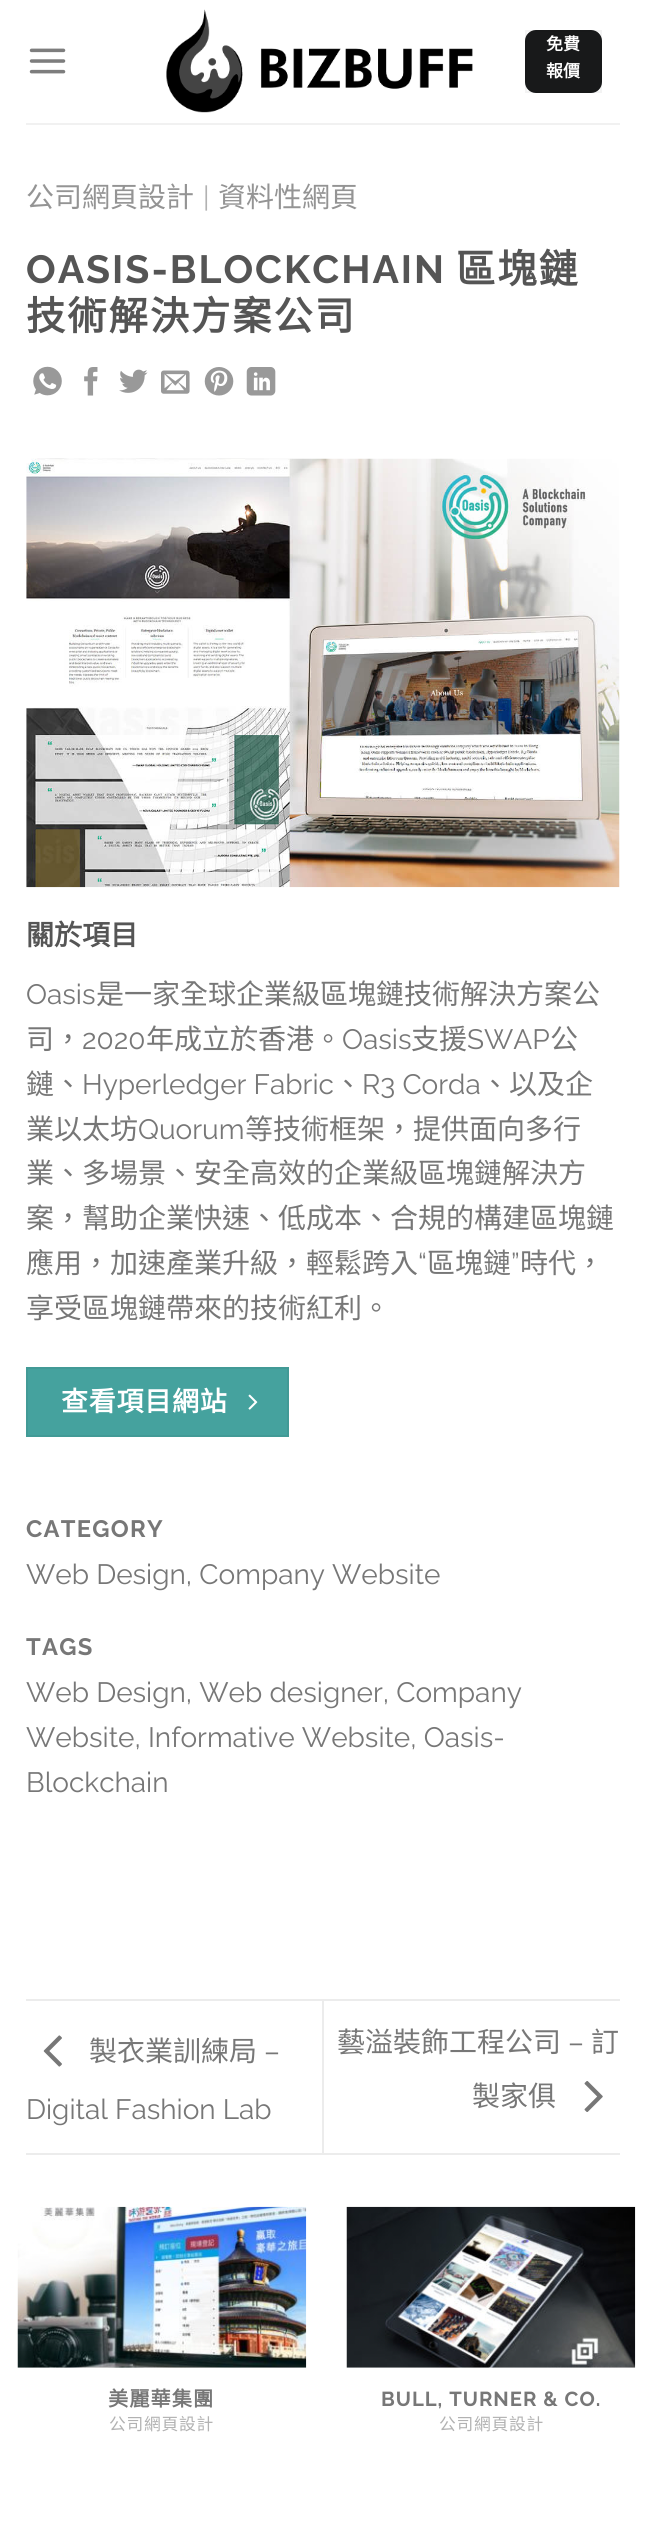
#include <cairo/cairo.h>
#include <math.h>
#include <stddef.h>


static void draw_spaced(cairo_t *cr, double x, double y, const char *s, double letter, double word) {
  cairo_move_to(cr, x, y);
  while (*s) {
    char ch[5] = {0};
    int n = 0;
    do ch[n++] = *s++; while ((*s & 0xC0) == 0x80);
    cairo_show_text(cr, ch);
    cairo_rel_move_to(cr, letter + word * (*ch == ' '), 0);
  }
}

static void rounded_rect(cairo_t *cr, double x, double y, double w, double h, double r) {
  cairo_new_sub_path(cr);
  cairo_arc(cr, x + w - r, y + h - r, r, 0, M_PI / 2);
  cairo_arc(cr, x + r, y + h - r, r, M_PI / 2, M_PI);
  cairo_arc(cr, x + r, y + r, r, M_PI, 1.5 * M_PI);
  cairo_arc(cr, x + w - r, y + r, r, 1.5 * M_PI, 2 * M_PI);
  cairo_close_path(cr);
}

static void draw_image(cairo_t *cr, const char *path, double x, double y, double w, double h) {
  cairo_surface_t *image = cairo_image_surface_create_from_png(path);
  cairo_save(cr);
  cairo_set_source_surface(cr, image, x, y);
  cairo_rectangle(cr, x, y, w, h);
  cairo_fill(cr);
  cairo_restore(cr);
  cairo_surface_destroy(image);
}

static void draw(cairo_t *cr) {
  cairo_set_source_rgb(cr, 1, 1, 1);
  cairo_paint(cr);
  draw_image(cr, "images/1.png", 29, 48, 37, 26);
  draw_image(cr, "images/2.png", 166, 9, 307, 104);
  cairo_set_source_rgb(cr, 24 / 255.0, 25 / 255.0, 26 / 255.0);
  rounded_rect(cr, 525, 30, 77, 63, 11);
  cairo_fill(cr);
  cairo_rectangle(cr, 526, 31, 75, 61);
  cairo_set_source_rgba(cr, 0, 0, 0, 0.05);
  cairo_stroke(cr);
  cairo_set_source_rgb(cr, 241 / 255.0, 241 / 255.0, 241 / 255.0);
  cairo_rectangle(cr, 26, 123, 594, 2);
  cairo_fill(cr);
  draw_image(cr, "images/3.png", 33, 366, 29, 30);
  draw_image(cr, "images/4.png", 84, 367, 14, 29);
  draw_image(cr, "images/5.png", 119, 369, 29, 24);
  draw_image(cr, "images/6.png", 161, 370, 29, 24);
  draw_image(cr, "images/7.png", 204, 367, 30, 29);
  draw_image(cr, "images/8.png", 246, 367, 30, 29);
  draw_image(cr, "images/9.png", 26, 458, 594, 430);
  cairo_set_source_rgb(cr, 69 / 255.0, 162 / 255.0, 158 / 255.0);
  cairo_rectangle(cr, 27, 1368, 261, 68);
  cairo_fill_preserve(cr);
  cairo_set_source_rgb(cr, 66 / 255.0, 154 / 255.0, 150 / 255.0);
  cairo_stroke(cr);
  draw_image(cr, "images/10.png", 248, 1394, 10, 16);
  cairo_set_source_rgb(cr, 236 / 255.0, 236 / 255.0, 236 / 255.0);
  cairo_rectangle(cr, 26, 1999, 594, 2);
  cairo_fill(cr);
  cairo_rectangle(cr, 26, 2153, 594, 2);
  cairo_fill(cr);
  draw_image(cr, "images/11.png", 43, 2035, 19, 32);
  cairo_rectangle(cr, 322, 2000, 2, 153);
  cairo_fill(cr);
  draw_image(cr, "images/12.png", 584, 2081, 19, 31);
  draw_image(cr, "images/13.png", 17, 2206, 290, 162);
  draw_image(cr, "images/14.png", 346, 2206, 290, 162);
  cairo_select_font_face(cr, "Noto Sans CJK HK", CAIRO_FONT_SLANT_NORMAL, CAIRO_FONT_WEIGHT_BOLD);
  cairo_set_font_size(cr, 17);
  cairo_set_source_rgb(cr, 1, 1, 1);
  cairo_move_to(cr, 546, 50);
  cairo_show_text(cr, "免費");
  cairo_move_to(cr, 546, 77);
  cairo_show_text(cr, "報價");
  cairo_select_font_face(cr, "Noto Sans CJK HK", CAIRO_FONT_SLANT_NORMAL, CAIRO_FONT_WEIGHT_NORMAL);
  cairo_set_font_size(cr, 28);
  cairo_set_source_rgb(cr, 148 / 255.0, 148 / 255.0, 148 / 255.0);
  cairo_move_to(cr, 26, 207);
  cairo_show_text(cr, "公司網頁設計");
  cairo_select_font_face(cr, "Raleway", CAIRO_FONT_SLANT_NORMAL, CAIRO_FONT_WEIGHT_NORMAL);
  cairo_set_source_rgb(cr, 178 / 255.0, 178 / 255.0, 178 / 255.0);
  cairo_move_to(cr, 203, 207);
  cairo_show_text(cr, "|");
  cairo_select_font_face(cr, "Noto Sans CJK HK", CAIRO_FONT_SLANT_NORMAL, CAIRO_FONT_WEIGHT_NORMAL);
  cairo_set_source_rgb(cr, 148 / 255.0, 148 / 255.0, 148 / 255.0);
  cairo_move_to(cr, 218, 207);
  cairo_show_text(cr, "資料性網頁");
  cairo_select_font_face(cr, "Raleway", CAIRO_FONT_SLANT_NORMAL, CAIRO_FONT_WEIGHT_BOLD);
  cairo_set_font_size(cr, 39.25);
  cairo_set_source_rgb(cr, 85 / 255.0, 85 / 255.0, 85 / 255.0);
  draw_spaced(cr, 26, 283, "OASIS-BLOCKCHAIN", 2, 0);
  cairo_select_font_face(cr, "Noto Sans CJK HK", CAIRO_FONT_SLANT_NORMAL, CAIRO_FONT_WEIGHT_BOLD);
  draw_spaced(cr, 456, 283, "區塊鏈", 2, 0);
  draw_spaced(cr, 26, 330, "技術解決方案公司", 2, 0);
  cairo_set_font_size(cr, 28);
  cairo_move_to(cr, 26, 945);
  cairo_show_text(cr, "關於項目");
  cairo_select_font_face(cr, "Raleway", CAIRO_FONT_SLANT_NORMAL, CAIRO_FONT_WEIGHT_NORMAL);
  cairo_set_source_rgb(cr, 119 / 255.0, 119 / 255.0, 119 / 255.0);
  cairo_move_to(cr, 26, 1004);
  cairo_show_text(cr, "Oasis");
  cairo_select_font_face(cr, "Noto Sans CJK HK", CAIRO_FONT_SLANT_NORMAL, CAIRO_FONT_WEIGHT_NORMAL);
  cairo_move_to(cr, 96, 1004);
  cairo_show_text(cr, "是一家全球企業級區塊鏈技術解決方案公");
  cairo_move_to(cr, 26, 1049);
  cairo_show_text(cr, "司，");
  cairo_select_font_face(cr, "Raleway", CAIRO_FONT_SLANT_NORMAL, CAIRO_FONT_WEIGHT_NORMAL);
  cairo_move_to(cr, 82, 1049);
  cairo_show_text(cr, "2020");
  cairo_select_font_face(cr, "Noto Sans CJK HK", CAIRO_FONT_SLANT_NORMAL, CAIRO_FONT_WEIGHT_NORMAL);
  cairo_move_to(cr, 146, 1049);
  cairo_show_text(cr, "年成立於香港。");
  cairo_select_font_face(cr, "Raleway", CAIRO_FONT_SLANT_NORMAL, CAIRO_FONT_WEIGHT_NORMAL);
  cairo_move_to(cr, 342, 1049);
  cairo_show_text(cr, "Oasis");
  cairo_select_font_face(cr, "Noto Sans CJK HK", CAIRO_FONT_SLANT_NORMAL, CAIRO_FONT_WEIGHT_NORMAL);
  cairo_move_to(cr, 411, 1049);
  cairo_show_text(cr, "支援");
  cairo_select_font_face(cr, "Raleway", CAIRO_FONT_SLANT_NORMAL, CAIRO_FONT_WEIGHT_NORMAL);
  cairo_move_to(cr, 467, 1049);
  cairo_show_text(cr, "SWAP");
  cairo_select_font_face(cr, "Noto Sans CJK HK", CAIRO_FONT_SLANT_NORMAL, CAIRO_FONT_WEIGHT_NORMAL);
  cairo_move_to(cr, 550, 1049);
  cairo_show_text(cr, "公");
  cairo_move_to(cr, 26, 1094);
  cairo_show_text(cr, "鏈、");
  cairo_select_font_face(cr, "Raleway", CAIRO_FONT_SLANT_NORMAL, CAIRO_FONT_WEIGHT_NORMAL);
  cairo_move_to(cr, 82, 1094);
  cairo_show_text(cr, "Hyperledger Fabric");
  cairo_select_font_face(cr, "Noto Sans CJK HK", CAIRO_FONT_SLANT_NORMAL, CAIRO_FONT_WEIGHT_NORMAL);
  cairo_move_to(cr, 334, 1094);
  cairo_show_text(cr, "、");
  cairo_select_font_face(cr, "Raleway", CAIRO_FONT_SLANT_NORMAL, CAIRO_FONT_WEIGHT_NORMAL);
  cairo_move_to(cr, 362, 1094);
  cairo_show_text(cr, "R3 Corda");
  cairo_select_font_face(cr, "Noto Sans CJK HK", CAIRO_FONT_SLANT_NORMAL, CAIRO_FONT_WEIGHT_NORMAL);
  cairo_move_to(cr, 481, 1094);
  cairo_show_text(cr, "、以及企");
  cairo_move_to(cr, 26, 1139);
  cairo_show_text(cr, "業以太坊");
  cairo_select_font_face(cr, "Raleway", CAIRO_FONT_SLANT_NORMAL, CAIRO_FONT_WEIGHT_NORMAL);
  cairo_move_to(cr, 138, 1139);
  cairo_show_text(cr, "Quorum");
  cairo_select_font_face(cr, "Noto Sans CJK HK", CAIRO_FONT_SLANT_NORMAL, CAIRO_FONT_WEIGHT_NORMAL);
  cairo_move_to(cr, 245, 1139);
  cairo_show_text(cr, "等技術框架，提供面向多行");
  cairo_move_to(cr, 26, 1183);
  cairo_show_text(cr, "業、多場景、安全高效的企業級區塊鏈解決方");
  cairo_move_to(cr, 26, 1228);
  cairo_show_text(cr, "案，幫助企業快速、低成本、合規的構建區塊鏈");
  cairo_move_to(cr, 26, 1273);
  cairo_show_text(cr, "應用，加速產業升級，輕鬆跨入");
  cairo_select_font_face(cr, "Raleway", CAIRO_FONT_SLANT_NORMAL, CAIRO_FONT_WEIGHT_NORMAL);
  cairo_move_to(cr, 418, 1273);
  cairo_show_text(cr, "“");
  cairo_select_font_face(cr, "Noto Sans CJK HK", CAIRO_FONT_SLANT_NORMAL, CAIRO_FONT_WEIGHT_NORMAL);
  cairo_move_to(cr, 427, 1273);
  cairo_show_text(cr, "區塊鏈");
  cairo_select_font_face(cr, "Raleway", CAIRO_FONT_SLANT_NORMAL, CAIRO_FONT_WEIGHT_NORMAL);
  cairo_move_to(cr, 511, 1273);
  cairo_show_text(cr, "”");
  cairo_select_font_face(cr, "Noto Sans CJK HK", CAIRO_FONT_SLANT_NORMAL, CAIRO_FONT_WEIGHT_NORMAL);
  cairo_move_to(cr, 520, 1273);
  cairo_show_text(cr, "時代，");
  cairo_move_to(cr, 26, 1318);
  cairo_show_text(cr, "享受區塊鏈帶來的技術紅利。");
  cairo_select_font_face(cr, "Noto Sans CJK HK", CAIRO_FONT_SLANT_NORMAL, CAIRO_FONT_WEIGHT_BOLD);
  cairo_set_font_size(cr, 27);
  cairo_set_source_rgb(cr, 1, 1, 1);
  draw_spaced(cr, 61, 1411, "查看項目網站", 0.75, 0);
  cairo_select_font_face(cr, "Raleway", CAIRO_FONT_SLANT_NORMAL, CAIRO_FONT_WEIGHT_BOLD);
  cairo_set_font_size(cr, 23.75);
  cairo_set_source_rgb(cr, 119 / 255.0, 119 / 255.0, 119 / 255.0);
  draw_spaced(cr, 26, 1537, "CATEGORY", 1.25, 0);
  cairo_select_font_face(cr, "Raleway", CAIRO_FONT_SLANT_NORMAL, CAIRO_FONT_WEIGHT_NORMAL);
  cairo_set_font_size(cr, 28);
  cairo_move_to(cr, 26, 1584);
  cairo_show_text(cr, "Web Design, Company Website");
  cairo_select_font_face(cr, "Raleway", CAIRO_FONT_SLANT_NORMAL, CAIRO_FONT_WEIGHT_BOLD);
  cairo_set_font_size(cr, 23.75);
  draw_spaced(cr, 26, 1655, "TAGS", 1.25, 0);
  cairo_select_font_face(cr, "Raleway", CAIRO_FONT_SLANT_NORMAL, CAIRO_FONT_WEIGHT_NORMAL);
  cairo_set_font_size(cr, 28);
  cairo_move_to(cr, 26, 1702);
  cairo_show_text(cr, "Web Design, Web designer, Company");
  cairo_move_to(cr, 26, 1747);
  cairo_show_text(cr, "Website, Informative Website, Oasis-");
  cairo_move_to(cr, 26, 1792);
  cairo_show_text(cr, "Blockchain");
  cairo_select_font_face(cr, "Noto Sans CJK HK", CAIRO_FONT_SLANT_NORMAL, CAIRO_FONT_WEIGHT_NORMAL);
  cairo_move_to(cr, 89, 2061);
  cairo_show_text(cr, "製衣業訓練局");
  cairo_select_font_face(cr, "Raleway", CAIRO_FONT_SLANT_NORMAL, CAIRO_FONT_WEIGHT_NORMAL);
  cairo_move_to(cr, 264, 2061);
  cairo_show_text(cr, "–");
  cairo_move_to(cr, 26, 2119);
  cairo_show_text(cr, "Digital Fashion Lab");
  cairo_select_font_face(cr, "Noto Sans CJK HK", CAIRO_FONT_SLANT_NORMAL, CAIRO_FONT_WEIGHT_NORMAL);
  cairo_move_to(cr, 337, 2052);
  cairo_show_text(cr, "藝溢裝飾工程公司");
  cairo_select_font_face(cr, "Raleway", CAIRO_FONT_SLANT_NORMAL, CAIRO_FONT_WEIGHT_NORMAL);
  cairo_move_to(cr, 568, 2052);
  cairo_show_text(cr, "–");
  cairo_select_font_face(cr, "Noto Sans CJK HK", CAIRO_FONT_SLANT_NORMAL, CAIRO_FONT_WEIGHT_NORMAL);
  cairo_move_to(cr, 591, 2052);
  cairo_show_text(cr, "訂");
  cairo_move_to(cr, 472, 2106);
  cairo_show_text(cr, "製家俱");
  cairo_select_font_face(cr, "Noto Sans CJK HK", CAIRO_FONT_SLANT_NORMAL, CAIRO_FONT_WEIGHT_BOLD);
  cairo_set_font_size(cr, 20.25);
  draw_spaced(cr, 108, 2406, "美麗華集團", 1, 0);
  cairo_select_font_face(cr, "Noto Sans CJK HK", CAIRO_FONT_SLANT_NORMAL, CAIRO_FONT_WEIGHT_NORMAL);
  cairo_set_font_size(cr, 16.75);
  cairo_set_source_rgb(cr, 178 / 255.0, 178 / 255.0, 178 / 255.0);
  draw_spaced(cr, 109, 2430, "公司網頁設計", 0.75, 0);
  cairo_select_font_face(cr, "Raleway", CAIRO_FONT_SLANT_NORMAL, CAIRO_FONT_WEIGHT_BOLD);
  cairo_set_font_size(cr, 20.25);
  cairo_set_source_rgb(cr, 119 / 255.0, 119 / 255.0, 119 / 255.0);
  draw_spaced(cr, 381, 2406, "BULL, TURNER & CO.", 1, 0);
  cairo_select_font_face(cr, "Noto Sans CJK HK", CAIRO_FONT_SLANT_NORMAL, CAIRO_FONT_WEIGHT_NORMAL);
  cairo_set_font_size(cr, 16.75);
  cairo_set_source_rgb(cr, 178 / 255.0, 178 / 255.0, 178 / 255.0);
  draw_spaced(cr, 439, 2430, "公司網頁設計", 0.75, 0);
}

int main(void) {
  cairo_surface_t *surface = cairo_image_surface_create(CAIRO_FORMAT_RGB24, 645, 2523);
  cairo_t *cr = cairo_create(surface);
  cairo_font_options_t *options = cairo_font_options_create();
  cairo_font_options_set_hint_metrics(options, CAIRO_HINT_METRICS_OFF);
  cairo_font_options_set_hint_style(options, CAIRO_HINT_STYLE_NONE);
  cairo_set_font_options(cr, options);
  cairo_set_miter_limit(cr, 4);
  draw(cr);
  cairo_surface_write_to_png(surface, "out.png");
  cairo_font_options_destroy(options);
  cairo_destroy(cr);
  cairo_surface_destroy(surface);
  return 0;
}
